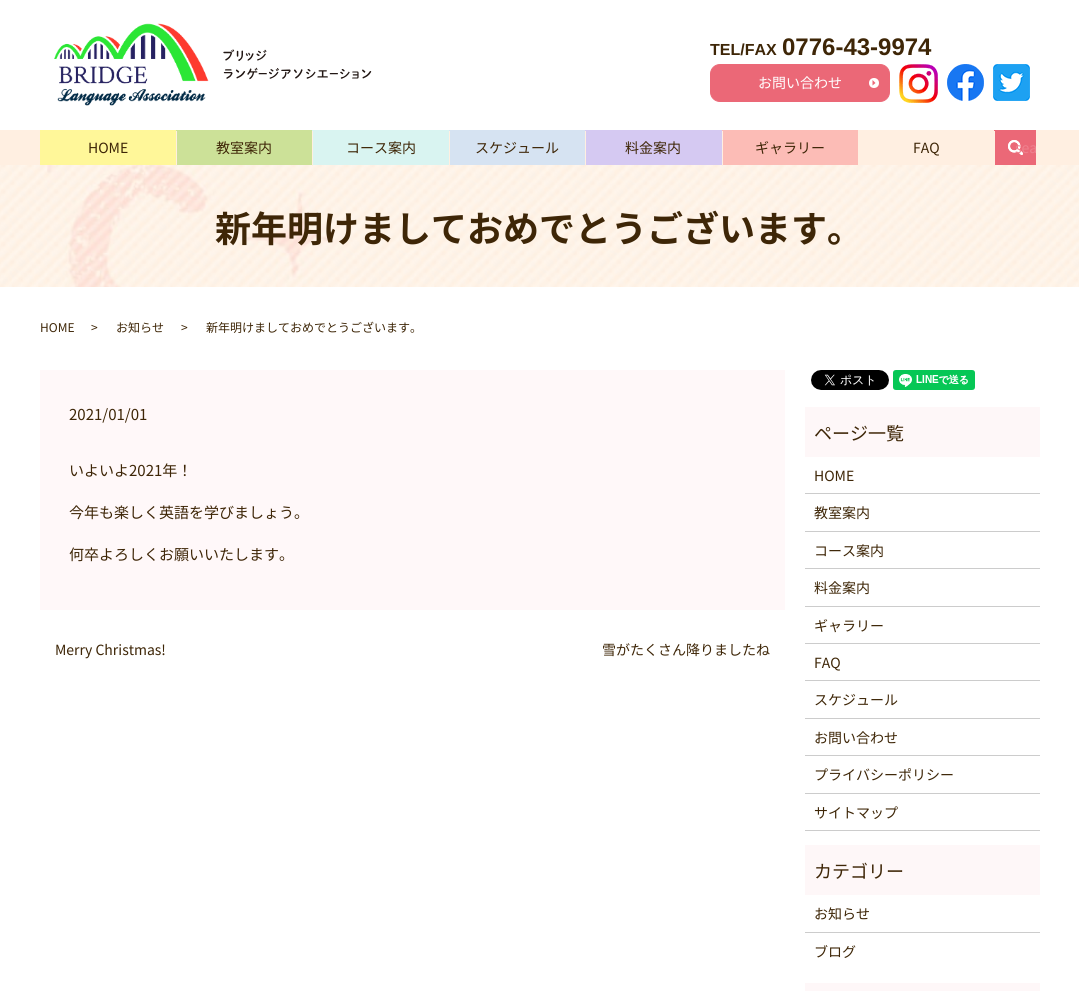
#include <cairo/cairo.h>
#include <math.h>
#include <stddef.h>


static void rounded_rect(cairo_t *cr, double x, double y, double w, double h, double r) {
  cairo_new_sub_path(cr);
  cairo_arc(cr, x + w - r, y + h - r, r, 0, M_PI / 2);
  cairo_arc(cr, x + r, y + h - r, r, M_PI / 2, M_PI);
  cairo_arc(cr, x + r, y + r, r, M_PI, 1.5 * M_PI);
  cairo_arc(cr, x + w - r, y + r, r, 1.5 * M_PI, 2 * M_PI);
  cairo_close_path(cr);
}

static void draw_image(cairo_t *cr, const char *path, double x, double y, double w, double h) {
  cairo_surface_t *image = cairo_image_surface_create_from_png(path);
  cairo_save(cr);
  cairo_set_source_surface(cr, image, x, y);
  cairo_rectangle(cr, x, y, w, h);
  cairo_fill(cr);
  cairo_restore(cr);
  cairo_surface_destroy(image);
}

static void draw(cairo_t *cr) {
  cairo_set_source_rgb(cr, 1, 1, 1);
  cairo_paint(cr);
  draw_image(cr, "images/1.png", 54, 23, 318, 83);
  cairo_set_source_rgb(cr, 1, 239 / 255.0, 225 / 255.0);
  cairo_rectangle(cr, 0, 130, 1079, 35);
  cairo_fill(cr);
  cairo_set_source_rgb(cr, 235 / 255.0, 104 / 255.0, 119 / 255.0);
  rounded_rect(cr, 710.5, 64.5, 179, 37, 9.5);
  cairo_fill_preserve(cr);
  cairo_set_line_width(cr, 1);
  cairo_stroke(cr);
  cairo_set_source_rgb(cr, 1, 1, 1);
  cairo_arc(cr, 874, 83, 5, 0, 2 * M_PI);
  cairo_fill(cr);
  cairo_set_source_rgb(cr, 235 / 255.0, 104 / 255.0, 119 / 255.0);
  cairo_new_path(cr);
  cairo_move_to(cr, 872.5, 80);
  cairo_line_to(cr, 875.5, 83);
  cairo_line_to(cr, 872.5, 83);
  cairo_close_path(cr);
  cairo_move_to(cr, 875.5, 83);
  cairo_line_to(cr, 872.5, 85.5);
  cairo_line_to(cr, 872.5, 83);
  cairo_close_path(cr);
  cairo_fill(cr);
  draw_image(cr, "images/2.png", 899, 64, 39, 39);
  draw_image(cr, "images/3.png", 947, 64, 37, 37);
  draw_image(cr, "images/4.png", 993, 64, 37, 37);
  cairo_set_source_rgb(cr, 1, 247 / 255.0, 153 / 255.0);
  cairo_rectangle(cr, 40, 130, 136, 35);
  cairo_fill(cr);
  cairo_set_source_rgb(cr, 204 / 255.0, 225 / 255.0, 152 / 255.0);
  cairo_rectangle(cr, 176, 130, 136, 35);
  cairo_fill(cr);
  draw_image(cr, "images/7.png", 0, 165, 1079, 122);
  cairo_set_source_rgb(cr, 1, 239 / 255.0, 225 / 255.0);
  cairo_rectangle(cr, 176, 131, 1, 35);
  cairo_fill(cr);
  cairo_set_source_rgb(cr, 217 / 255.0, 244 / 255.0, 241 / 255.0);
  cairo_rectangle(cr, 312, 130, 137, 35);
  cairo_fill(cr);
  cairo_set_source_rgb(cr, 1, 239 / 255.0, 225 / 255.0);
  cairo_rectangle(cr, 312, 131, 1, 35);
  cairo_fill(cr);
  cairo_set_source_rgb(cr, 214 / 255.0, 227 / 255.0, 242 / 255.0);
  cairo_rectangle(cr, 449, 130, 136, 35);
  cairo_fill(cr);
  cairo_set_source_rgb(cr, 1, 239 / 255.0, 225 / 255.0);
  cairo_rectangle(cr, 449, 131, 1, 35);
  cairo_fill(cr);
  cairo_set_source_rgb(cr, 213 / 255.0, 201 / 255.0, 242 / 255.0);
  cairo_rectangle(cr, 585, 130, 137, 35);
  cairo_fill(cr);
  cairo_set_source_rgb(cr, 1, 239 / 255.0, 225 / 255.0);
  cairo_rectangle(cr, 585, 131, 1, 35);
  cairo_fill(cr);
  cairo_set_source_rgb(cr, 252 / 255.0, 188 / 255.0, 182 / 255.0);
  cairo_rectangle(cr, 722, 130, 136, 35);
  cairo_fill(cr);
  cairo_set_source_rgb(cr, 1, 239 / 255.0, 225 / 255.0);
  cairo_rectangle(cr, 722, 131, 1, 35);
  cairo_fill(cr);
  cairo_rectangle(cr, 858, 165, 1, 1);
  cairo_fill(cr);
  cairo_set_source_rgb(cr, 235 / 255.0, 104 / 255.0, 119 / 255.0);
  cairo_rectangle(cr, 994, 130, 42, 35);
  cairo_fill(cr);
  draw_image(cr, "images/5.png", 1008, 140, 15, 15);
  draw_image(cr, "images/6.png", 1008, 140, 15, 15);
  cairo_set_source_rgb(cr, 1, 239 / 255.0, 225 / 255.0);
  cairo_rectangle(cr, 994, 131, 1, 35);
  cairo_fill(cr);
  cairo_set_source_rgb(cr, 1, 248 / 255.0, 249 / 255.0);
  cairo_rectangle(cr, 40, 370, 745, 240);
  cairo_fill(cr);
  draw_image(cr, "images/8.png", 811, 370, 78, 20);
  draw_image(cr, "images/9.png", 893, 370, 82, 20);
  cairo_set_source_rgb(cr, 254 / 255.0, 247 / 255.0, 248 / 255.0);
  cairo_rectangle(cr, 805, 407, 235, 50);
  cairo_fill(cr);
  cairo_set_source_rgb(cr, 204 / 255.0, 204 / 255.0, 204 / 255.0);
  cairo_rectangle(cr, 805, 493, 235, 1);
  cairo_fill(cr);
  cairo_rectangle(cr, 805, 531, 235, 1);
  cairo_fill(cr);
  cairo_rectangle(cr, 805, 568, 235, 1);
  cairo_fill(cr);
  cairo_rectangle(cr, 805, 606, 235, 1);
  cairo_fill(cr);
  cairo_rectangle(cr, 805, 643, 235, 1);
  cairo_fill(cr);
  cairo_rectangle(cr, 805, 680, 235, 1);
  cairo_fill(cr);
  cairo_rectangle(cr, 805, 718, 235, 1);
  cairo_fill(cr);
  cairo_rectangle(cr, 805, 755, 235, 1);
  cairo_fill(cr);
  cairo_rectangle(cr, 805, 793, 235, 1);
  cairo_fill(cr);
  cairo_rectangle(cr, 805, 830, 235, 1);
  cairo_fill(cr);
  cairo_set_source_rgb(cr, 254 / 255.0, 247 / 255.0, 248 / 255.0);
  cairo_rectangle(cr, 805, 845, 235, 50);
  cairo_fill(cr);
  cairo_set_source_rgb(cr, 204 / 255.0, 204 / 255.0, 204 / 255.0);
  cairo_rectangle(cr, 805, 932, 235, 1);
  cairo_fill(cr);
  cairo_set_source_rgb(cr, 254 / 255.0, 247 / 255.0, 248 / 255.0);
  cairo_rectangle(cr, 805, 983, 235, 8);
  cairo_fill(cr);
  cairo_select_font_face(cr, "Liberation Sans", CAIRO_FONT_SLANT_NORMAL, CAIRO_FONT_WEIGHT_BOLD);
  cairo_set_font_size(cr, 16);
  cairo_set_source_rgb(cr, 62 / 255.0, 38 / 255.0, 7 / 255.0);
  cairo_move_to(cr, 710, 55);
  cairo_show_text(cr, "TEL/FAX");
  cairo_set_font_size(cr, 24);
  cairo_move_to(cr, 782, 55);
  cairo_show_text(cr, "0776-43-9974");
  cairo_select_font_face(cr, "Noto Sans JP", CAIRO_FONT_SLANT_NORMAL, CAIRO_FONT_WEIGHT_NORMAL);
  cairo_set_font_size(cr, 14);
  cairo_set_source_rgb(cr, 1, 1, 1);
  cairo_move_to(cr, 758, 88);
  cairo_show_text(cr, "お問い合わせ");
  cairo_set_source_rgb(cr, 62 / 255.0, 38 / 255.0, 7 / 255.0);
  cairo_move_to(cr, 88, 153);
  cairo_show_text(cr, "HOME");
  cairo_move_to(cr, 216, 153);
  cairo_show_text(cr, "教室案内");
  cairo_move_to(cr, 346, 153);
  cairo_show_text(cr, "コース案内");
  cairo_move_to(cr, 475, 153);
  cairo_show_text(cr, "スケジュール");
  cairo_move_to(cr, 625, 153);
  cairo_show_text(cr, "料金案内");
  cairo_move_to(cr, 755, 153);
  cairo_show_text(cr, "ギャラリー");
  cairo_move_to(cr, 913, 153);
  cairo_show_text(cr, "FAQ");
  cairo_save(cr);
  cairo_rectangle(cr, 994, 130, 42, 35);
  cairo_clip(cr);
  cairo_set_source_rgb(cr, 238 / 255.0, 129 / 255.0, 142 / 255.0);
  cairo_move_to(cr, 1015, 153);
  cairo_show_text(cr, "sea");
  cairo_restore(cr);
  cairo_select_font_face(cr, "Noto Sans JP", CAIRO_FONT_SLANT_NORMAL, CAIRO_FONT_WEIGHT_BOLD);
  cairo_set_font_size(cr, 36);
  cairo_move_to(cr, 215, 242);
  cairo_show_text(cr, "新年明けましておめでとうございます。");
  cairo_select_font_face(cr, "Noto Sans JP", CAIRO_FONT_SLANT_NORMAL, CAIRO_FONT_WEIGHT_NORMAL);
  cairo_set_font_size(cr, 12);
  cairo_move_to(cr, 40, 332);
  cairo_show_text(cr, "HOME");
  cairo_move_to(cr, 91, 332);
  cairo_show_text(cr, ">");
  cairo_move_to(cr, 116, 332);
  cairo_show_text(cr, "お知らせ");
  cairo_move_to(cr, 181, 332);
  cairo_show_text(cr, ">");
  cairo_move_to(cr, 206, 332);
  cairo_show_text(cr, "新年明けましておめでとうございます。");
  cairo_set_font_size(cr, 15);
  cairo_move_to(cr, 69, 420);
  cairo_show_text(cr, "2021/01/01");
  cairo_move_to(cr, 69, 476);
  cairo_show_text(cr, "いよいよ2021年！");
  cairo_move_to(cr, 69, 518);
  cairo_show_text(cr, "今年も楽しく英語を学びましょう。");
  cairo_move_to(cr, 69, 560);
  cairo_show_text(cr, "何卒よろしくお願いいたします。");
  cairo_set_font_size(cr, 14);
  cairo_move_to(cr, 55, 655);
  cairo_show_text(cr, "Merry Christmas!");
  cairo_move_to(cr, 602, 655);
  cairo_show_text(cr, "雪がたくさん降りましたね");
  cairo_set_font_size(cr, 18);
  cairo_move_to(cr, 814, 440);
  cairo_show_text(cr, "ページ一覧");
  cairo_set_font_size(cr, 14);
  cairo_move_to(cr, 814, 481);
  cairo_show_text(cr, "HOME");
  cairo_move_to(cr, 814, 518);
  cairo_show_text(cr, "教室案内");
  cairo_move_to(cr, 814, 556);
  cairo_show_text(cr, "コース案内");
  cairo_move_to(cr, 814, 593);
  cairo_show_text(cr, "料金案内");
  cairo_move_to(cr, 814, 631);
  cairo_show_text(cr, "ギャラリー");
  cairo_move_to(cr, 814, 668);
  cairo_show_text(cr, "FAQ");
  cairo_move_to(cr, 814, 705);
  cairo_show_text(cr, "スケジュール");
  cairo_move_to(cr, 814, 743);
  cairo_show_text(cr, "お問い合わせ");
  cairo_move_to(cr, 814, 780);
  cairo_show_text(cr, "プライバシーポリシー");
  cairo_move_to(cr, 814, 818);
  cairo_show_text(cr, "サイトマップ");
  cairo_set_font_size(cr, 18);
  cairo_move_to(cr, 814, 878);
  cairo_show_text(cr, "カテゴリー");
  cairo_set_font_size(cr, 14);
  cairo_move_to(cr, 814, 919);
  cairo_show_text(cr, "お知らせ");
  cairo_move_to(cr, 814, 957);
  cairo_show_text(cr, "ブログ");
}

int main(void) {
  cairo_surface_t *surface = cairo_image_surface_create(CAIRO_FORMAT_RGB24, 1079, 991);
  cairo_t *cr = cairo_create(surface);
  cairo_font_options_t *options = cairo_font_options_create();
  cairo_font_options_set_hint_metrics(options, CAIRO_HINT_METRICS_OFF);
  cairo_font_options_set_hint_style(options, CAIRO_HINT_STYLE_NONE);
  cairo_set_font_options(cr, options);
  cairo_set_miter_limit(cr, 4);
  draw(cr);
  cairo_surface_write_to_png(surface, "out.png");
  cairo_font_options_destroy(options);
  cairo_destroy(cr);
  cairo_surface_destroy(surface);
  return 0;
}
